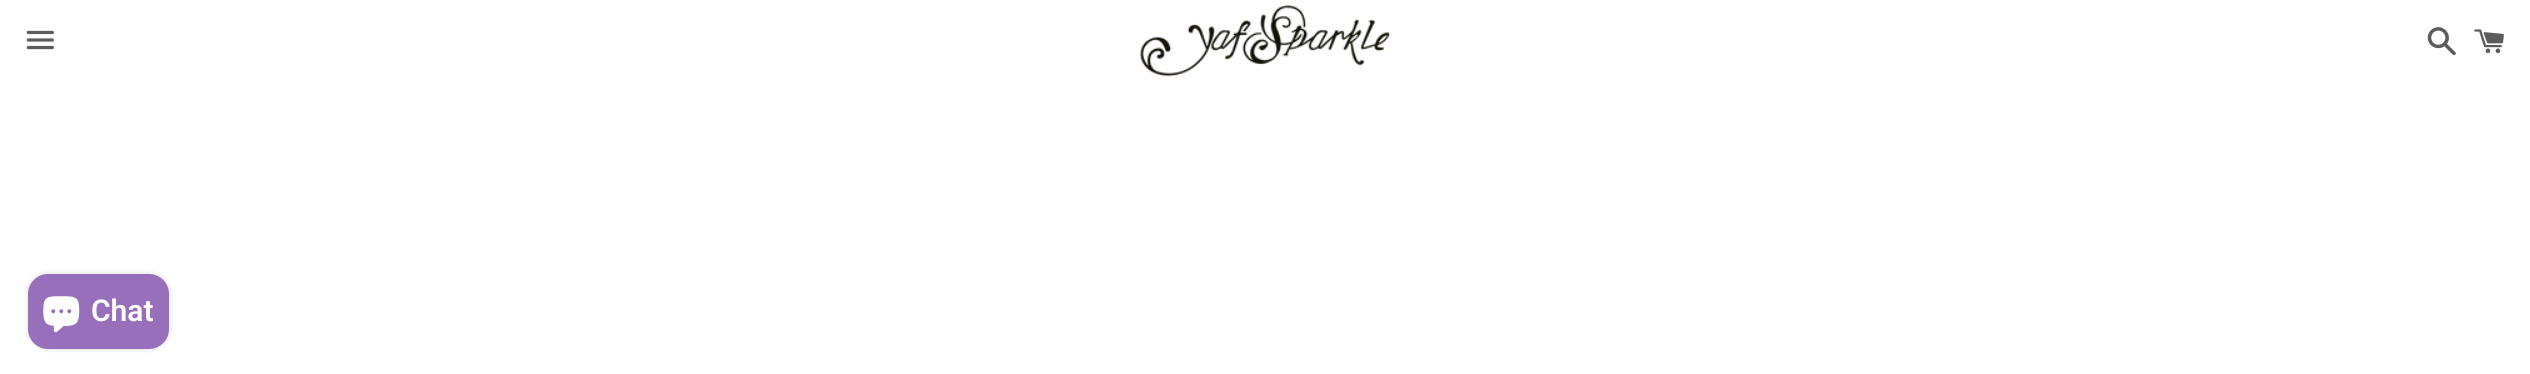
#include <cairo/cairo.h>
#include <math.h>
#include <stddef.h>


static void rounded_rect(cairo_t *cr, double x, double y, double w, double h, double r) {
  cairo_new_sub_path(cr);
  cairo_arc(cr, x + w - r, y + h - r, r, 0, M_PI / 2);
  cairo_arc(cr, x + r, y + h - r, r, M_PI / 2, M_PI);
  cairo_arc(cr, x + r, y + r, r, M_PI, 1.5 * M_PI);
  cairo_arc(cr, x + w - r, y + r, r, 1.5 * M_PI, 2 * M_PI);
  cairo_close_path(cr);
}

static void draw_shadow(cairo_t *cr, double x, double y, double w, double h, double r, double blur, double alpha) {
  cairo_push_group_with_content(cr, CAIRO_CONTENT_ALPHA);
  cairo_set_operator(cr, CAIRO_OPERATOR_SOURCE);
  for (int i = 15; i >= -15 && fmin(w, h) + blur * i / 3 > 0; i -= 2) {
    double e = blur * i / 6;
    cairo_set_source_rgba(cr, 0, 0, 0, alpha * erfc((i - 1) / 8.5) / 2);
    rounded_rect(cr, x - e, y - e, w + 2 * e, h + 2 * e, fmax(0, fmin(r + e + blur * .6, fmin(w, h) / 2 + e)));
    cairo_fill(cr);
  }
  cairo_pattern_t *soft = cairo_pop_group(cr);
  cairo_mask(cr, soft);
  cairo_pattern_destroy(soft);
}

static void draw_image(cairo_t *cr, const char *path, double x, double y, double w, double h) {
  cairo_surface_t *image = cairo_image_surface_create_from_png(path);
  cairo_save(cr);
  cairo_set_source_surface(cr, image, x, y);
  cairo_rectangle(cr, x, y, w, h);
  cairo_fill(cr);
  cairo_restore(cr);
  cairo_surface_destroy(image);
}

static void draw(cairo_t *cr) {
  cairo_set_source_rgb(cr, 1, 1, 1);
  cairo_paint(cr);
  draw_image(cr, "images/1.png", 26, 30, 28, 20);
  draw_image(cr, "images/2.png", 1140, 5, 250, 72);
  draw_image(cr, "images/3.png", 2427, 27, 29, 29);
  draw_image(cr, "images/4.png", 2474, 29, 30, 25);
  cairo_set_source_rgb(cr, 0, 0, 0);
  draw_shadow(cr, 28, 274, 141, 75, 20, 3, 0.15);
  cairo_set_source_rgb(cr, 152 / 255.0, 111 / 255.0, 186 / 255.0);
  rounded_rect(cr, 28, 274, 141, 75, 20);
  cairo_fill(cr);
  draw_image(cr, "images/5.png", 43, 296, 37, 37);
  cairo_select_font_face(cr, "Roboto SemiBold", CAIRO_FONT_SLANT_NORMAL, CAIRO_FONT_WEIGHT_NORMAL);
  cairo_set_font_size(cr, 30);
  cairo_set_source_rgb(cr, 1, 1, 1);
  cairo_move_to(cr, 91, 321);
  cairo_show_text(cr, "Chat");
}

int main(void) {
  cairo_surface_t *surface = cairo_image_surface_create(CAIRO_FORMAT_RGB24, 2530, 374);
  cairo_t *cr = cairo_create(surface);
  cairo_font_options_t *options = cairo_font_options_create();
  cairo_font_options_set_hint_metrics(options, CAIRO_HINT_METRICS_OFF);
  cairo_font_options_set_hint_style(options, CAIRO_HINT_STYLE_NONE);
  cairo_set_font_options(cr, options);
  cairo_set_miter_limit(cr, 4);
  draw(cr);
  cairo_surface_write_to_png(surface, "out.png");
  cairo_font_options_destroy(options);
  cairo_destroy(cr);
  cairo_surface_destroy(surface);
  return 0;
}
